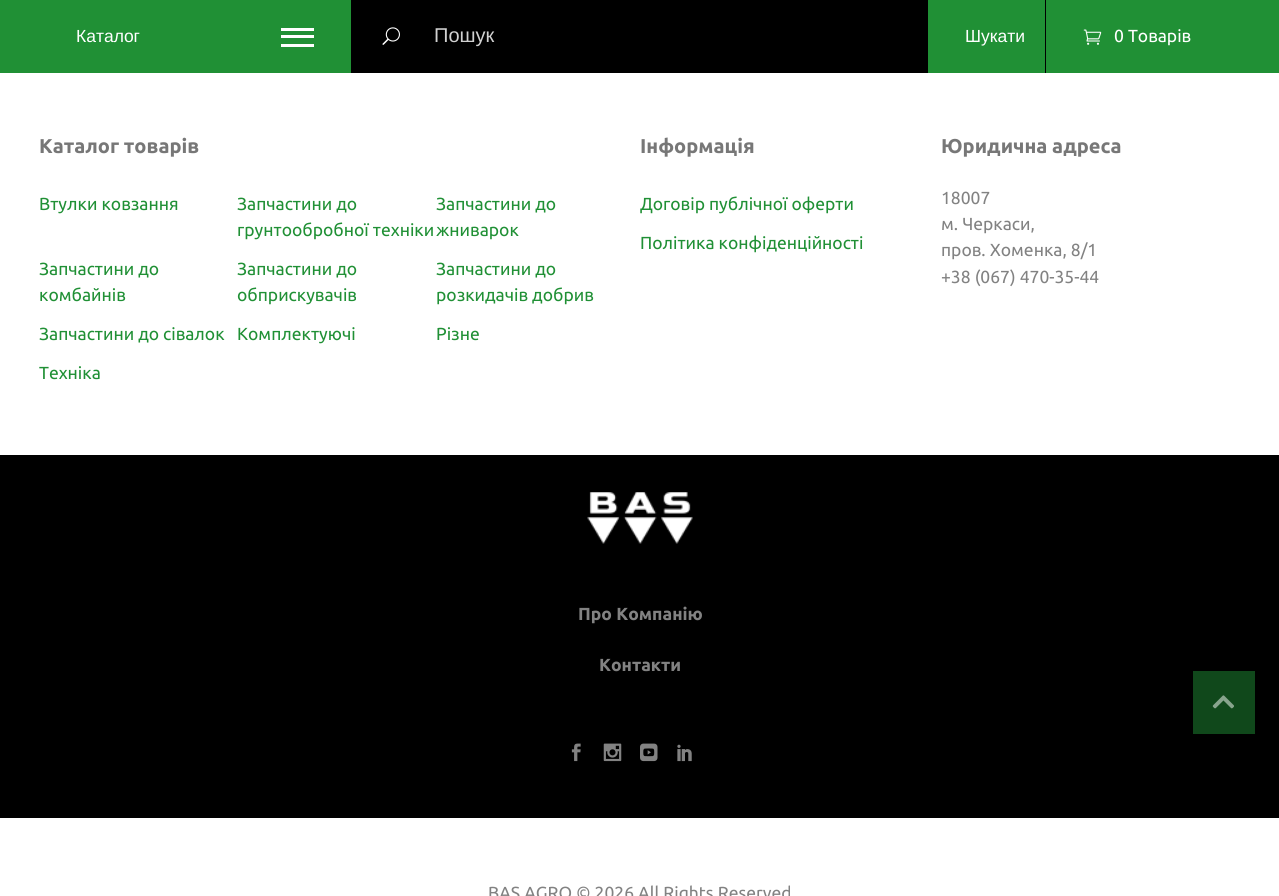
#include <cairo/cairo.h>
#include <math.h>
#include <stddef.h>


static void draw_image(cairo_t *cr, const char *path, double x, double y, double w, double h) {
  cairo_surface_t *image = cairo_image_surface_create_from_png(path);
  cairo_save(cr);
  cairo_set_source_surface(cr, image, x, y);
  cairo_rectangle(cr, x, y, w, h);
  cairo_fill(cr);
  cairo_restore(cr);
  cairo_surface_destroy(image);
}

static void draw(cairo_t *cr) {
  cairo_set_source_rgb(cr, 1, 1, 1);
  cairo_paint(cr);
  cairo_set_source_rgb(cr, 32 / 255.0, 144 / 255.0, 53 / 255.0);
  cairo_rectangle(cr, 0, 0, 1279, 73);
  cairo_fill(cr);
  cairo_set_source_rgb(cr, 0, 0, 0);
  cairo_rectangle(cr, 351, 0, 695, 73);
  cairo_fill(cr);
  cairo_set_source_rgb(cr, 1, 1, 1);
  cairo_rectangle(cr, 281, 28, 33, 3);
  cairo_fill(cr);
  cairo_rectangle(cr, 281, 35, 33, 3);
  cairo_fill(cr);
  cairo_rectangle(cr, 281, 44, 33, 3);
  cairo_fill(cr);
  draw_image(cr, "images/1.png", 382, 27, 18, 18);
  cairo_set_source_rgb(cr, 32 / 255.0, 144 / 255.0, 53 / 255.0);
  cairo_rectangle(cr, 928, 0, 117, 73);
  cairo_fill(cr);
  draw_image(cr, "images/2.png", 1083, 29, 19, 16);
  cairo_set_source_rgb(cr, 0, 0, 0);
  cairo_rectangle(cr, 0, 455, 1279, 363);
  cairo_fill(cr);
  draw_image(cr, "images/3.png", 587, 492, 106, 52);
  draw_image(cr, "images/4.png", 571, 743, 10, 19);
  draw_image(cr, "images/5.png", 603, 743, 19, 19);
  draw_image(cr, "images/6.png", 640, 743, 18, 19);
  draw_image(cr, "images/7.png", 677, 744, 15, 18);
  cairo_set_source_rgb(cr, 16 / 255.0, 72 / 255.0, 27 / 255.0);
  cairo_rectangle(cr, 1193, 671, 62, 63);
  cairo_fill(cr);
  draw_image(cr, "images/8.png", 1212, 695, 22, 14);
  cairo_select_font_face(cr, "Liberation Sans", CAIRO_FONT_SLANT_NORMAL, CAIRO_FONT_WEIGHT_NORMAL);
  cairo_set_font_size(cr, 17.5);
  cairo_set_source_rgb(cr, 1, 1, 1);
  cairo_move_to(cr, 76, 42);
  cairo_show_text(cr, "Каталог");
  cairo_set_font_size(cr, 20);
  cairo_set_source_rgb(cr, 209 / 255.0, 209 / 255.0, 209 / 255.0);
  cairo_move_to(cr, 434, 42);
  cairo_show_text(cr, "Пошук");
  cairo_set_font_size(cr, 17.5);
  cairo_set_source_rgb(cr, 1, 1, 1);
  cairo_move_to(cr, 965, 42);
  cairo_show_text(cr, "Шукати");
  cairo_select_font_face(cr, "Ubuntu", CAIRO_FONT_SLANT_NORMAL, CAIRO_FONT_WEIGHT_NORMAL);
  cairo_move_to(cr, 1114, 42);
  cairo_show_text(cr, "0 Товарів");
  cairo_select_font_face(cr, "Ubuntu", CAIRO_FONT_SLANT_NORMAL, CAIRO_FONT_WEIGHT_BOLD);
  cairo_set_font_size(cr, 20);
  cairo_set_source_rgb(cr, 119 / 255.0, 119 / 255.0, 119 / 255.0);
  cairo_move_to(cr, 39, 153);
  cairo_show_text(cr, "Каталог товарів");
  cairo_select_font_face(cr, "Ubuntu", CAIRO_FONT_SLANT_NORMAL, CAIRO_FONT_WEIGHT_NORMAL);
  cairo_set_font_size(cr, 17.5);
  cairo_set_source_rgb(cr, 32 / 255.0, 144 / 255.0, 53 / 255.0);
  cairo_move_to(cr, 39, 210);
  cairo_show_text(cr, "Втулки ковзання");
  cairo_move_to(cr, 237, 210);
  cairo_show_text(cr, "Запчастини до");
  cairo_move_to(cr, 237, 236);
  cairo_show_text(cr, "грунтообробної техніки");
  cairo_move_to(cr, 436, 210);
  cairo_show_text(cr, "Запчастини до");
  cairo_move_to(cr, 436, 236);
  cairo_show_text(cr, "жниварок");
  cairo_move_to(cr, 39, 275);
  cairo_show_text(cr, "Запчастини до");
  cairo_move_to(cr, 39, 301);
  cairo_show_text(cr, "комбайнів");
  cairo_move_to(cr, 237, 275);
  cairo_show_text(cr, "Запчастини до");
  cairo_move_to(cr, 237, 301);
  cairo_show_text(cr, "обприскувачів");
  cairo_move_to(cr, 436, 275);
  cairo_show_text(cr, "Запчастини до");
  cairo_move_to(cr, 436, 301);
  cairo_show_text(cr, "розкидачів добрив");
  cairo_move_to(cr, 39, 340);
  cairo_show_text(cr, "Запчастини до сівалок");
  cairo_move_to(cr, 237, 340);
  cairo_show_text(cr, "Комплектуючі");
  cairo_move_to(cr, 436, 340);
  cairo_show_text(cr, "Різне");
  cairo_move_to(cr, 39, 379);
  cairo_show_text(cr, "Техніка");
  cairo_select_font_face(cr, "Ubuntu", CAIRO_FONT_SLANT_NORMAL, CAIRO_FONT_WEIGHT_BOLD);
  cairo_set_font_size(cr, 20);
  cairo_set_source_rgb(cr, 119 / 255.0, 119 / 255.0, 119 / 255.0);
  cairo_move_to(cr, 640, 153);
  cairo_show_text(cr, "Інформація");
  cairo_select_font_face(cr, "Ubuntu", CAIRO_FONT_SLANT_NORMAL, CAIRO_FONT_WEIGHT_NORMAL);
  cairo_set_font_size(cr, 17.5);
  cairo_set_source_rgb(cr, 32 / 255.0, 144 / 255.0, 53 / 255.0);
  cairo_move_to(cr, 640, 210);
  cairo_show_text(cr, "Договір публічної оферти");
  cairo_move_to(cr, 640, 249);
  cairo_show_text(cr, "Політика конфіденційності");
  cairo_select_font_face(cr, "Ubuntu", CAIRO_FONT_SLANT_NORMAL, CAIRO_FONT_WEIGHT_BOLD);
  cairo_set_font_size(cr, 20);
  cairo_set_source_rgb(cr, 119 / 255.0, 119 / 255.0, 119 / 255.0);
  cairo_move_to(cr, 941, 153);
  cairo_show_text(cr, "Юридична адреса");
  cairo_select_font_face(cr, "Ubuntu", CAIRO_FONT_SLANT_NORMAL, CAIRO_FONT_WEIGHT_NORMAL);
  cairo_set_font_size(cr, 17.5);
  cairo_set_source_rgb(cr, 130 / 255.0, 130 / 255.0, 130 / 255.0);
  cairo_move_to(cr, 941, 204);
  cairo_show_text(cr, "18007");
  cairo_move_to(cr, 941, 230);
  cairo_show_text(cr, "м. Черкаси,");
  cairo_move_to(cr, 941, 256);
  cairo_show_text(cr, "пров. Хоменка, 8/1");
  cairo_move_to(cr, 941, 283);
  cairo_show_text(cr, "+38 (067) 470-35-44");
  cairo_select_font_face(cr, "Ubuntu", CAIRO_FONT_SLANT_NORMAL, CAIRO_FONT_WEIGHT_BOLD);
  cairo_move_to(cr, 578, 620);
  cairo_show_text(cr, "Про Компанію");
  cairo_move_to(cr, 599, 671);
  cairo_show_text(cr, "Контакти");
  cairo_select_font_face(cr, "Ubuntu", CAIRO_FONT_SLANT_NORMAL, CAIRO_FONT_WEIGHT_NORMAL);
  cairo_move_to(cr, 488, 899);
  cairo_show_text(cr, "BAS AGRO © 2026 All Rights Reserved");
}

int main(void) {
  cairo_surface_t *surface = cairo_image_surface_create(CAIRO_FORMAT_RGB24, 1279, 896);
  cairo_t *cr = cairo_create(surface);
  cairo_font_options_t *options = cairo_font_options_create();
  cairo_font_options_set_hint_metrics(options, CAIRO_HINT_METRICS_OFF);
  cairo_font_options_set_hint_style(options, CAIRO_HINT_STYLE_NONE);
  cairo_set_font_options(cr, options);
  cairo_set_miter_limit(cr, 4);
  draw(cr);
  cairo_surface_write_to_png(surface, "out.png");
  cairo_font_options_destroy(options);
  cairo_destroy(cr);
  cairo_surface_destroy(surface);
  return 0;
}
